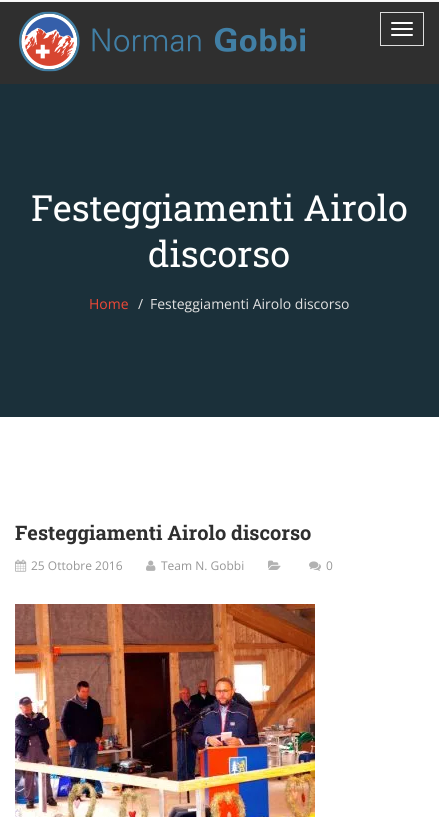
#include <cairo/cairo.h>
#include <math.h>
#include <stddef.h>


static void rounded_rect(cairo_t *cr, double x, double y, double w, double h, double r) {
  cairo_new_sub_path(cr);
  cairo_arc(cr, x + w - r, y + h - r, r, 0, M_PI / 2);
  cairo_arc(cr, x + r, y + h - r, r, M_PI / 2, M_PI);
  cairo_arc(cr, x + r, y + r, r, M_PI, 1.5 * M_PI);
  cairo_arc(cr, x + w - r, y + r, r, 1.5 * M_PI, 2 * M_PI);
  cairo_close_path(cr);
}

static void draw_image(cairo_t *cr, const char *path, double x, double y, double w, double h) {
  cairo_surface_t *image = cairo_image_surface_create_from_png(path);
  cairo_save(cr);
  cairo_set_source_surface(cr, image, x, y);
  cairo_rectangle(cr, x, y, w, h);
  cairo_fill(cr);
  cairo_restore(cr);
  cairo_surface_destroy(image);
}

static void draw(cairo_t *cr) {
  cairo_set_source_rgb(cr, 1, 1, 1);
  cairo_paint(cr);
  cairo_set_source_rgb(cr, 249 / 255.0, 249 / 255.0, 249 / 255.0);
  cairo_rectangle(cr, 0, 0, 439, 1);
  cairo_fill(cr);
  cairo_set_source_rgb(cr, 247 / 255.0, 247 / 255.0, 247 / 255.0);
  cairo_rectangle(cr, 0, 1, 439, 1);
  cairo_fill(cr);
  cairo_set_source_rgb(cr, 47 / 255.0, 47 / 255.0, 47 / 255.0);
  cairo_rectangle(cr, 0, 2, 439, 82);
  cairo_fill(cr);
  draw_image(cr, "images/1.png", 19, 11, 286, 61);
  cairo_rectangle(cr, 380.5, 12.5, 43, 33);
  cairo_set_source_rgb(cr, 221 / 255.0, 221 / 255.0, 221 / 255.0);
  cairo_set_line_width(cr, 1);
  cairo_stroke(cr);
  cairo_set_source_rgb(cr, 1, 1, 1);
  rounded_rect(cr, 391, 22, 22, 2, 1);
  cairo_fill(cr);
  rounded_rect(cr, 391, 28, 22, 2, 1);
  cairo_fill(cr);
  rounded_rect(cr, 391, 34, 22, 2, 1);
  cairo_fill(cr);
  cairo_set_source_rgb(cr, 27 / 255.0, 48 / 255.0, 58 / 255.0);
  cairo_rectangle(cr, 0, 84, 439, 333);
  cairo_fill(cr);
  draw_image(cr, "images/2.png", 15, 559, 12, 13);
  draw_image(cr, "images/3.png", 146, 560, 10, 11);
  draw_image(cr, "images/4.png", 268, 560, 13, 10);
  draw_image(cr, "images/5.png", 309, 561, 12, 10);
  draw_image(cr, "images/6.png", 15, 604, 300, 213);
  cairo_select_font_face(cr, "Roboto Slab", CAIRO_FONT_SLANT_NORMAL, CAIRO_FONT_WEIGHT_NORMAL);
  cairo_set_font_size(cr, 36);
  cairo_set_source_rgb(cr, 1, 1, 1);
  cairo_move_to(cr, 31, 221);
  cairo_show_text(cr, "Festeggiamenti Airolo");
  cairo_move_to(cr, 148, 267);
  cairo_show_text(cr, "discorso");
  cairo_select_font_face(cr, "Open Sans", CAIRO_FONT_SLANT_NORMAL, CAIRO_FONT_WEIGHT_NORMAL);
  cairo_set_font_size(cr, 14);
  cairo_set_source_rgb(cr, 239 / 255.0, 72 / 255.0, 54 / 255.0);
  cairo_move_to(cr, 89, 309);
  cairo_show_text(cr, "Home");
  cairo_set_source_rgb(cr, 226 / 255.0, 226 / 255.0, 226 / 255.0);
  cairo_move_to(cr, 138, 309);
  cairo_show_text(cr, "/");
  cairo_move_to(cr, 150, 309);
  cairo_show_text(cr, "Festeggiamenti Airolo discorso");
  cairo_select_font_face(cr, "Roboto Slab", CAIRO_FONT_SLANT_NORMAL, CAIRO_FONT_WEIGHT_BOLD);
  cairo_set_font_size(cr, 20);
  cairo_set_source_rgb(cr, 47 / 255.0, 47 / 255.0, 47 / 255.0);
  cairo_move_to(cr, 15, 540);
  cairo_show_text(cr, "Festeggiamenti Airolo discorso");
  cairo_select_font_face(cr, "Open Sans", CAIRO_FONT_SLANT_NORMAL, CAIRO_FONT_WEIGHT_NORMAL);
  cairo_set_font_size(cr, 12);
  cairo_set_source_rgb(cr, 150 / 255.0, 150 / 255.0, 150 / 255.0);
  cairo_move_to(cr, 31, 570);
  cairo_show_text(cr, "25 Ottobre 2016");
  cairo_move_to(cr, 161, 570);
  cairo_show_text(cr, "Team N. Gobbi");
  cairo_move_to(cr, 326, 570);
  cairo_show_text(cr, "0");
}

int main(void) {
  cairo_surface_t *surface = cairo_image_surface_create(CAIRO_FORMAT_RGB24, 439, 817);
  cairo_t *cr = cairo_create(surface);
  cairo_font_options_t *options = cairo_font_options_create();
  cairo_font_options_set_hint_metrics(options, CAIRO_HINT_METRICS_OFF);
  cairo_font_options_set_hint_style(options, CAIRO_HINT_STYLE_NONE);
  cairo_set_font_options(cr, options);
  cairo_set_miter_limit(cr, 4);
  draw(cr);
  cairo_surface_write_to_png(surface, "out.png");
  cairo_font_options_destroy(options);
  cairo_destroy(cr);
  cairo_surface_destroy(surface);
  return 0;
}
